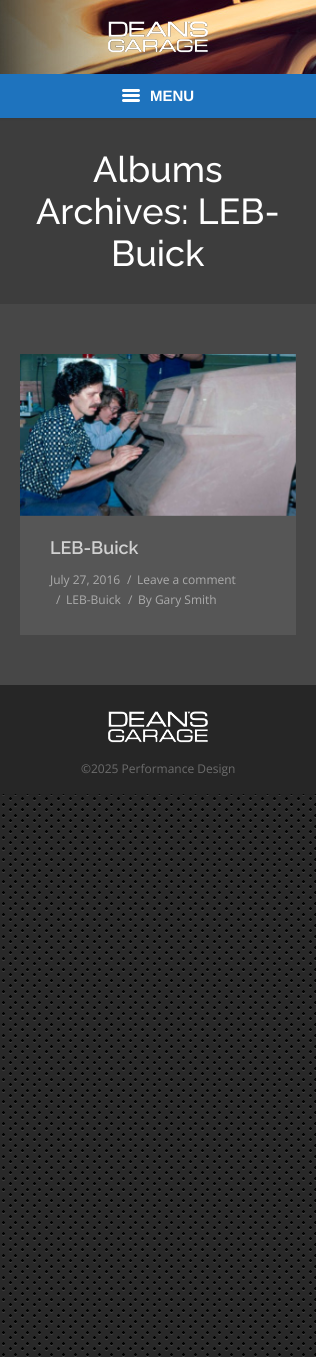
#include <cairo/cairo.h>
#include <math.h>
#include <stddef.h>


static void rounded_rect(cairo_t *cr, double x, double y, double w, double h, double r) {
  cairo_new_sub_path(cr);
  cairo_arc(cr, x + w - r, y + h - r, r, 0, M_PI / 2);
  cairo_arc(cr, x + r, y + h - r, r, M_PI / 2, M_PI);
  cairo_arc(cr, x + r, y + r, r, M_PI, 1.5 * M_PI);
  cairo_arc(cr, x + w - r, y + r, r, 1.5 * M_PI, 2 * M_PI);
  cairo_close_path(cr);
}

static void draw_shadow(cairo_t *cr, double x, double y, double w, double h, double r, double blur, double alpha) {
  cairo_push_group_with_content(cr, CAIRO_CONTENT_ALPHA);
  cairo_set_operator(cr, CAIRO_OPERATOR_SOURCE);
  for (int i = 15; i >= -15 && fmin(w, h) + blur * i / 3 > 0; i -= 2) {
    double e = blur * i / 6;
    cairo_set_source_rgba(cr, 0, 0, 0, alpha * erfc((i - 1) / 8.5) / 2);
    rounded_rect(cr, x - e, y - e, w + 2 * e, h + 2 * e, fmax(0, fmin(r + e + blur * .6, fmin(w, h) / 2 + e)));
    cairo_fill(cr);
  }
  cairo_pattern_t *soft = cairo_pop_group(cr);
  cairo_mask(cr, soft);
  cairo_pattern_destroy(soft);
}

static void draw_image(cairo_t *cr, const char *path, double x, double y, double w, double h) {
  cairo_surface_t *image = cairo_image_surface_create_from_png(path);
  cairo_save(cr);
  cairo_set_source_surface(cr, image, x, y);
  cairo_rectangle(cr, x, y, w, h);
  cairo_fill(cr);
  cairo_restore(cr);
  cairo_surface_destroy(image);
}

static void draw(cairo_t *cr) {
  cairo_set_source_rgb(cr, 1, 1, 1);
  cairo_paint(cr);
  draw_image(cr, "images/1.png", 0, 794, 316, 563);
  cairo_set_source_rgb(cr, 0, 0, 0);
  draw_shadow(cr, 0, 0, 316, 794, 0, 6, 0.15);
  cairo_set_source_rgb(cr, 71 / 255.0, 71 / 255.0, 71 / 255.0);
  cairo_rectangle(cr, 0, 304, 316, 381);
  cairo_fill(cr);
  cairo_set_source_rgb(cr, 61 / 255.0, 61 / 255.0, 61 / 255.0);
  cairo_rectangle(cr, 0, 118, 316, 186);
  cairo_fill(cr);
  cairo_set_source_rgb(cr, 0, 0, 0);
  draw_shadow(cr, 0, 0, 316, 118, 0, 2, 0.15);
  draw_image(cr, "images/2.png", 0, 0, 316, 74);
  draw_image(cr, "images/3.png", 108, 21, 100, 32);
  cairo_set_source_rgb(cr, 30 / 255.0, 115 / 255.0, 190 / 255.0);
  cairo_rectangle(cr, 0, 74, 316, 44);
  cairo_fill(cr);
  cairo_set_source_rgb(cr, 1, 1, 1);
  rounded_rect(cr, 122, 94, 18, 3, 1.5);
  cairo_fill(cr);
  rounded_rect(cr, 122, 89, 18, 3, 1.5);
  cairo_fill(cr);
  rounded_rect(cr, 122, 99, 18, 3, 1.5);
  cairo_fill(cr);
  cairo_set_source_rgb(cr, 86 / 255.0, 86 / 255.0, 86 / 255.0);
  cairo_rectangle(cr, 20, 354, 276, 281);
  cairo_fill(cr);
  draw_image(cr, "images/4.png", 20, 354, 276, 162);
  cairo_set_source_rgb(cr, 38 / 255.0, 38 / 255.0, 38 / 255.0);
  cairo_rectangle(cr, 0, 685, 316, 109);
  cairo_fill(cr);
  draw_image(cr, "images/5.png", 108, 711, 100, 32);
  cairo_select_font_face(cr, "Liberation Sans", CAIRO_FONT_SLANT_NORMAL, CAIRO_FONT_WEIGHT_BOLD);
  cairo_set_font_size(cr, 15);
  cairo_set_source_rgb(cr, 1, 1, 1);
  cairo_move_to(cr, 150, 101);
  cairo_show_text(cr, "MENU");
  cairo_select_font_face(cr, "Raleway Medium", CAIRO_FONT_SLANT_NORMAL, CAIRO_FONT_WEIGHT_NORMAL);
  cairo_set_font_size(cr, 36);
  cairo_move_to(cr, 93, 182);
  cairo_show_text(cr, "Albums");
  cairo_move_to(cr, 36, 224);
  cairo_show_text(cr, "Archives: LEB-");
  cairo_move_to(cr, 111, 266);
  cairo_show_text(cr, "Buick");
  cairo_select_font_face(cr, "Raleway SemiBold", CAIRO_FONT_SLANT_NORMAL, CAIRO_FONT_WEIGHT_NORMAL);
  cairo_set_font_size(cr, 18);
  cairo_set_source_rgb(cr, 209 / 255.0, 209 / 255.0, 209 / 255.0);
  cairo_move_to(cr, 50, 554);
  cairo_show_text(cr, "LEB-Buick");
  cairo_select_font_face(cr, "Open Sans", CAIRO_FONT_SLANT_NORMAL, CAIRO_FONT_WEIGHT_NORMAL);
  cairo_set_font_size(cr, 12);
  cairo_set_source_rgb(cr, 171 / 255.0, 171 / 255.0, 171 / 255.0);
  cairo_move_to(cr, 50, 584);
  cairo_show_text(cr, "July 27, 2016");
  cairo_move_to(cr, 127, 584);
  cairo_show_text(cr, "/");
  cairo_move_to(cr, 137, 584);
  cairo_show_text(cr, "Leave a comment");
  cairo_move_to(cr, 56, 604);
  cairo_show_text(cr, "/");
  cairo_move_to(cr, 66, 604);
  cairo_show_text(cr, "LEB-Buick");
  cairo_move_to(cr, 128, 604);
  cairo_show_text(cr, "/");
  cairo_move_to(cr, 138, 604);
  cairo_show_text(cr, "By Gary Smith");
  cairo_set_source_rgb(cr, 107 / 255.0, 107 / 255.0, 107 / 255.0);
  cairo_move_to(cr, 81, 773);
  cairo_show_text(cr, "©2025 Performance Design");
}

int main(void) {
  cairo_surface_t *surface = cairo_image_surface_create(CAIRO_FORMAT_RGB24, 316, 1357);
  cairo_t *cr = cairo_create(surface);
  cairo_font_options_t *options = cairo_font_options_create();
  cairo_font_options_set_hint_metrics(options, CAIRO_HINT_METRICS_OFF);
  cairo_font_options_set_hint_style(options, CAIRO_HINT_STYLE_NONE);
  cairo_set_font_options(cr, options);
  cairo_set_miter_limit(cr, 4);
  draw(cr);
  cairo_surface_write_to_png(surface, "out.png");
  cairo_font_options_destroy(options);
  cairo_destroy(cr);
  cairo_surface_destroy(surface);
  return 0;
}
